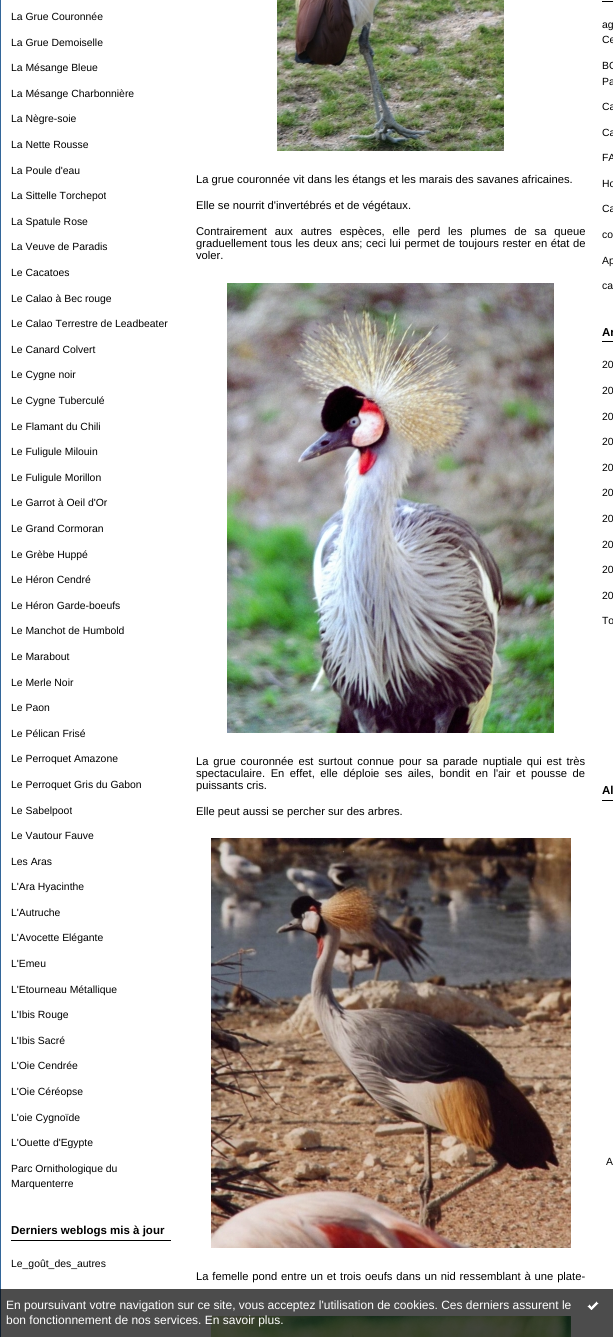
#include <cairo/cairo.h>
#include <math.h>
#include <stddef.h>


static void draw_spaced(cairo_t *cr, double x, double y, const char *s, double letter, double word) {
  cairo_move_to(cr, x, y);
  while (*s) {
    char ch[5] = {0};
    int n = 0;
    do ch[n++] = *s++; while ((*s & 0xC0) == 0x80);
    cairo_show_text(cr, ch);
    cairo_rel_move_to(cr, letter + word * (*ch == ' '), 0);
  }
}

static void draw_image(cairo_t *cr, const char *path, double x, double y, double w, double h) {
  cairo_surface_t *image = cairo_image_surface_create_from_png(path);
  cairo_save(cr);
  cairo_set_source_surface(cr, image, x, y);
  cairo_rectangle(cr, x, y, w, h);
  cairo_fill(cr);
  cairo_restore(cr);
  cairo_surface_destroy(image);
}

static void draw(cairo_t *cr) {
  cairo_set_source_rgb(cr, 1, 1, 1);
  cairo_paint(cr);
  cairo_rectangle(cr, 0.5, -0.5, 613, 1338);
  cairo_set_source_rgb(cr, 51 / 255.0, 102 / 255.0, 153 / 255.0);
  cairo_set_line_width(cr, 1);
  cairo_stroke(cr);
  cairo_set_source_rgb(cr, 0, 0, 0);
  cairo_rectangle(cr, 11, 1240, 160, 1);
  cairo_fill(cr);
  draw_image(cr, "images/1.png", 277, 0, 227, 151);
  draw_image(cr, "images/2.png", 227, 283, 327, 450);
  draw_image(cr, "images/3.png", 211, 838, 360, 410);
  draw_image(cr, "images/4.png", 211, 1316, 360, 21);
  cairo_rectangle(cr, 602, 1, 11, 1);
  cairo_fill(cr);
  cairo_rectangle(cr, 602, 341, 11, 1);
  cairo_fill(cr);
  cairo_rectangle(cr, 602, 800, 11, 1);
  cairo_fill(cr);
  cairo_set_source_rgba(cr, 0, 0, 0, 0.7);
  cairo_rectangle(cr, 0, 1289, 613, 48);
  cairo_fill(cr);
  draw_image(cr, "images/5.png", 587, 1301, 12, 9);
  cairo_select_font_face(cr, "Liberation Sans", CAIRO_FONT_SLANT_NORMAL, CAIRO_FONT_WEIGHT_NORMAL);
  cairo_set_font_size(cr, 10.4);
  cairo_set_source_rgb(cr, 0, 0, 0);
  cairo_move_to(cr, 11, 20);
  cairo_show_text(cr, "La Grue Couronnée");
  cairo_move_to(cr, 11, 46);
  cairo_show_text(cr, "La Grue Demoiselle");
  cairo_move_to(cr, 11, 71);
  cairo_show_text(cr, "La Mésange Bleue");
  cairo_move_to(cr, 11, 97);
  cairo_show_text(cr, "La Mésange Charbonnière");
  cairo_move_to(cr, 11, 122);
  cairo_show_text(cr, "La Nègre-soie");
  cairo_move_to(cr, 11, 148);
  cairo_show_text(cr, "La Nette Rousse");
  cairo_move_to(cr, 11, 174);
  cairo_show_text(cr, "La Poule d'eau");
  cairo_move_to(cr, 11, 199);
  cairo_show_text(cr, "La Sittelle Torchepot");
  cairo_move_to(cr, 11, 225);
  cairo_show_text(cr, "La Spatule Rose");
  cairo_move_to(cr, 11, 250);
  cairo_show_text(cr, "La Veuve de Paradis");
  cairo_move_to(cr, 11, 276);
  cairo_show_text(cr, "Le Cacatoes");
  cairo_move_to(cr, 11, 302);
  cairo_show_text(cr, "Le Calao à Bec rouge");
  cairo_move_to(cr, 11, 327);
  cairo_show_text(cr, "Le Calao Terrestre de Leadbeater");
  cairo_move_to(cr, 11, 353);
  cairo_show_text(cr, "Le Canard Colvert");
  cairo_move_to(cr, 11, 378);
  cairo_show_text(cr, "Le Cygne noir");
  cairo_move_to(cr, 11, 404);
  cairo_show_text(cr, "Le Cygne Tuberculé");
  cairo_move_to(cr, 11, 430);
  cairo_show_text(cr, "Le Flamant du Chili");
  cairo_move_to(cr, 11, 455);
  cairo_show_text(cr, "Le Fuligule Milouin");
  cairo_move_to(cr, 11, 481);
  cairo_show_text(cr, "Le Fuligule Morillon");
  cairo_move_to(cr, 11, 506);
  cairo_show_text(cr, "Le Garrot à Oeil d'Or");
  cairo_move_to(cr, 11, 532);
  cairo_show_text(cr, "Le Grand Cormoran");
  cairo_move_to(cr, 11, 558);
  cairo_show_text(cr, "Le Grèbe Huppé");
  cairo_move_to(cr, 11, 583);
  cairo_show_text(cr, "Le Héron Cendré");
  cairo_move_to(cr, 11, 609);
  cairo_show_text(cr, "Le Héron Garde-boeufs");
  cairo_move_to(cr, 11, 634);
  cairo_show_text(cr, "Le Manchot de Humbold");
  cairo_move_to(cr, 11, 660);
  cairo_show_text(cr, "Le Marabout");
  cairo_move_to(cr, 11, 686);
  cairo_show_text(cr, "Le Merle Noir");
  cairo_move_to(cr, 11, 711);
  cairo_show_text(cr, "Le Paon");
  cairo_move_to(cr, 11, 737);
  cairo_show_text(cr, "Le Pélican Frisé");
  cairo_move_to(cr, 11, 762);
  cairo_show_text(cr, "Le Perroquet Amazone");
  cairo_move_to(cr, 11, 788);
  cairo_show_text(cr, "Le Perroquet Gris du Gabon");
  cairo_move_to(cr, 11, 814);
  cairo_show_text(cr, "Le Sabelpoot");
  cairo_move_to(cr, 11, 839);
  cairo_show_text(cr, "Le Vautour Fauve");
  cairo_move_to(cr, 11, 865);
  cairo_show_text(cr, "Les Aras");
  cairo_move_to(cr, 11, 890);
  cairo_show_text(cr, "L'Ara Hyacinthe");
  cairo_move_to(cr, 11, 916);
  cairo_show_text(cr, "L'Autruche");
  cairo_move_to(cr, 11, 941);
  cairo_show_text(cr, "L'Avocette Elégante");
  cairo_move_to(cr, 11, 967);
  cairo_show_text(cr, "L'Emeu");
  cairo_move_to(cr, 11, 993);
  cairo_show_text(cr, "L'Etourneau Métallique");
  cairo_move_to(cr, 11, 1018);
  cairo_show_text(cr, "L'Ibis Rouge");
  cairo_move_to(cr, 11, 1044);
  cairo_show_text(cr, "L'Ibis Sacré");
  cairo_move_to(cr, 11, 1069);
  cairo_show_text(cr, "L'Oie Cendrée");
  cairo_move_to(cr, 11, 1095);
  cairo_show_text(cr, "L'Oie Céréopse");
  cairo_move_to(cr, 11, 1121);
  cairo_show_text(cr, "L'oie Cygnoïde");
  cairo_move_to(cr, 11, 1146);
  cairo_show_text(cr, "L'Ouette d'Egypte");
  cairo_move_to(cr, 11, 1172);
  cairo_show_text(cr, "Parc Ornithologique du");
  cairo_move_to(cr, 11, 1187);
  cairo_show_text(cr, "Marquenterre");
  cairo_select_font_face(cr, "Liberation Sans", CAIRO_FONT_SLANT_NORMAL, CAIRO_FONT_WEIGHT_BOLD);
  cairo_set_font_size(cr, 11.5);
  cairo_move_to(cr, 11, 1234);
  cairo_show_text(cr, "Derniers weblogs mis à jour");
  cairo_select_font_face(cr, "Liberation Sans", CAIRO_FONT_SLANT_NORMAL, CAIRO_FONT_WEIGHT_NORMAL);
  cairo_set_font_size(cr, 10.4);
  cairo_move_to(cr, 11, 1267);
  cairo_show_text(cr, "Le_goût_des_autres");
  cairo_set_font_size(cr, 11.2);
  cairo_move_to(cr, 196, 183);
  cairo_show_text(cr, "La grue couronnée vit dans les étangs et les marais des savanes africaines.");
  cairo_move_to(cr, 196, 209);
  cairo_show_text(cr, "Elle se nourrit d'invertébrés et de végétaux.");
  draw_spaced(cr, 196, 235, "Contrairement aux autres espèces, elle perd les plumes de sa queue", 0, 4.75);
  draw_spaced(cr, 196, 247, "graduellement tous les deux ans; ceci lui permet de toujours rester en état de", 0, 0.5);
  cairo_move_to(cr, 196, 259);
  cairo_show_text(cr, "voler.");
  draw_spaced(cr, 196, 765, "La grue couronnée est surtout connue pour sa parade nuptiale qui est très", 0, 1.75);
  draw_spaced(cr, 196, 777, "spectaculaire. En effet, elle déploie ses ailes, bondit en l'air et pousse de", 0, 2.4);
  cairo_move_to(cr, 196, 789);
  cairo_show_text(cr, "puissants cris.");
  cairo_move_to(cr, 196, 815);
  cairo_show_text(cr, "Elle peut aussi se percher sur des arbres.");
  draw_spaced(cr, 196, 1280, "La femelle pond entre un et trois oeufs dans un nid ressemblant à une plate-", 0, 0.75);
  cairo_set_font_size(cr, 10.4);
  cairo_move_to(cr, 602, 28);
  cairo_show_text(cr, "ag");
  cairo_move_to(cr, 602, 43);
  cairo_show_text(cr, "Ce");
  cairo_move_to(cr, 602, 69);
  cairo_show_text(cr, "BO");
  cairo_move_to(cr, 602, 85);
  cairo_show_text(cr, "Pa");
  cairo_move_to(cr, 602, 110);
  cairo_show_text(cr, "Ca");
  cairo_move_to(cr, 602, 136);
  cairo_show_text(cr, "Ca");
  cairo_move_to(cr, 602, 161);
  cairo_show_text(cr, "FA");
  cairo_move_to(cr, 602, 187);
  cairo_show_text(cr, "Ho");
  cairo_move_to(cr, 602, 212);
  cairo_show_text(cr, "Ca");
  cairo_move_to(cr, 602, 238);
  cairo_show_text(cr, "co");
  cairo_move_to(cr, 602, 264);
  cairo_show_text(cr, "Ap");
  cairo_move_to(cr, 602, 289);
  cairo_show_text(cr, "ca");
  cairo_select_font_face(cr, "Liberation Sans", CAIRO_FONT_SLANT_NORMAL, CAIRO_FONT_WEIGHT_BOLD);
  cairo_set_font_size(cr, 11.5);
  cairo_move_to(cr, 602, 336);
  cairo_show_text(cr, "Ar");
  cairo_select_font_face(cr, "Liberation Sans", CAIRO_FONT_SLANT_NORMAL, CAIRO_FONT_WEIGHT_NORMAL);
  cairo_set_font_size(cr, 10.4);
  cairo_move_to(cr, 602, 368);
  cairo_show_text(cr, "20");
  cairo_move_to(cr, 602, 394);
  cairo_show_text(cr, "20");
  cairo_move_to(cr, 602, 420);
  cairo_show_text(cr, "20");
  cairo_move_to(cr, 602, 445);
  cairo_show_text(cr, "20");
  cairo_move_to(cr, 602, 471);
  cairo_show_text(cr, "20");
  cairo_move_to(cr, 602, 496);
  cairo_show_text(cr, "20");
  cairo_move_to(cr, 602, 522);
  cairo_show_text(cr, "20");
  cairo_move_to(cr, 602, 548);
  cairo_show_text(cr, "20");
  cairo_move_to(cr, 602, 573);
  cairo_show_text(cr, "20");
  cairo_move_to(cr, 602, 599);
  cairo_show_text(cr, "20");
  cairo_move_to(cr, 602, 624);
  cairo_show_text(cr, "To");
  cairo_select_font_face(cr, "Liberation Sans", CAIRO_FONT_SLANT_NORMAL, CAIRO_FONT_WEIGHT_BOLD);
  cairo_set_font_size(cr, 11.5);
  cairo_move_to(cr, 602, 794);
  cairo_show_text(cr, "Al");
  cairo_select_font_face(cr, "Liberation Sans", CAIRO_FONT_SLANT_NORMAL, CAIRO_FONT_WEIGHT_NORMAL);
  cairo_set_font_size(cr, 10.4);
  cairo_move_to(cr, 606, 1165);
  cairo_show_text(cr, "A");
  cairo_set_font_size(cr, 12);
  cairo_set_source_rgb(cr, 1, 1, 1);
  cairo_move_to(cr, 6, 1309);
  cairo_show_text(cr, "En poursuivant votre navigation sur ce site, vous acceptez l'utilisation de cookies. Ces derniers assurent le");
  cairo_move_to(cr, 6, 1324);
  cairo_show_text(cr, "bon fonctionnement de nos services. En savoir plus.");
}

int main(void) {
  cairo_surface_t *surface = cairo_image_surface_create(CAIRO_FORMAT_RGB24, 613, 1337);
  cairo_t *cr = cairo_create(surface);
  cairo_font_options_t *options = cairo_font_options_create();
  cairo_font_options_set_hint_metrics(options, CAIRO_HINT_METRICS_OFF);
  cairo_font_options_set_hint_style(options, CAIRO_HINT_STYLE_NONE);
  cairo_set_font_options(cr, options);
  cairo_set_miter_limit(cr, 4);
  draw(cr);
  cairo_surface_write_to_png(surface, "out.png");
  cairo_font_options_destroy(options);
  cairo_destroy(cr);
  cairo_surface_destroy(surface);
  return 0;
}
